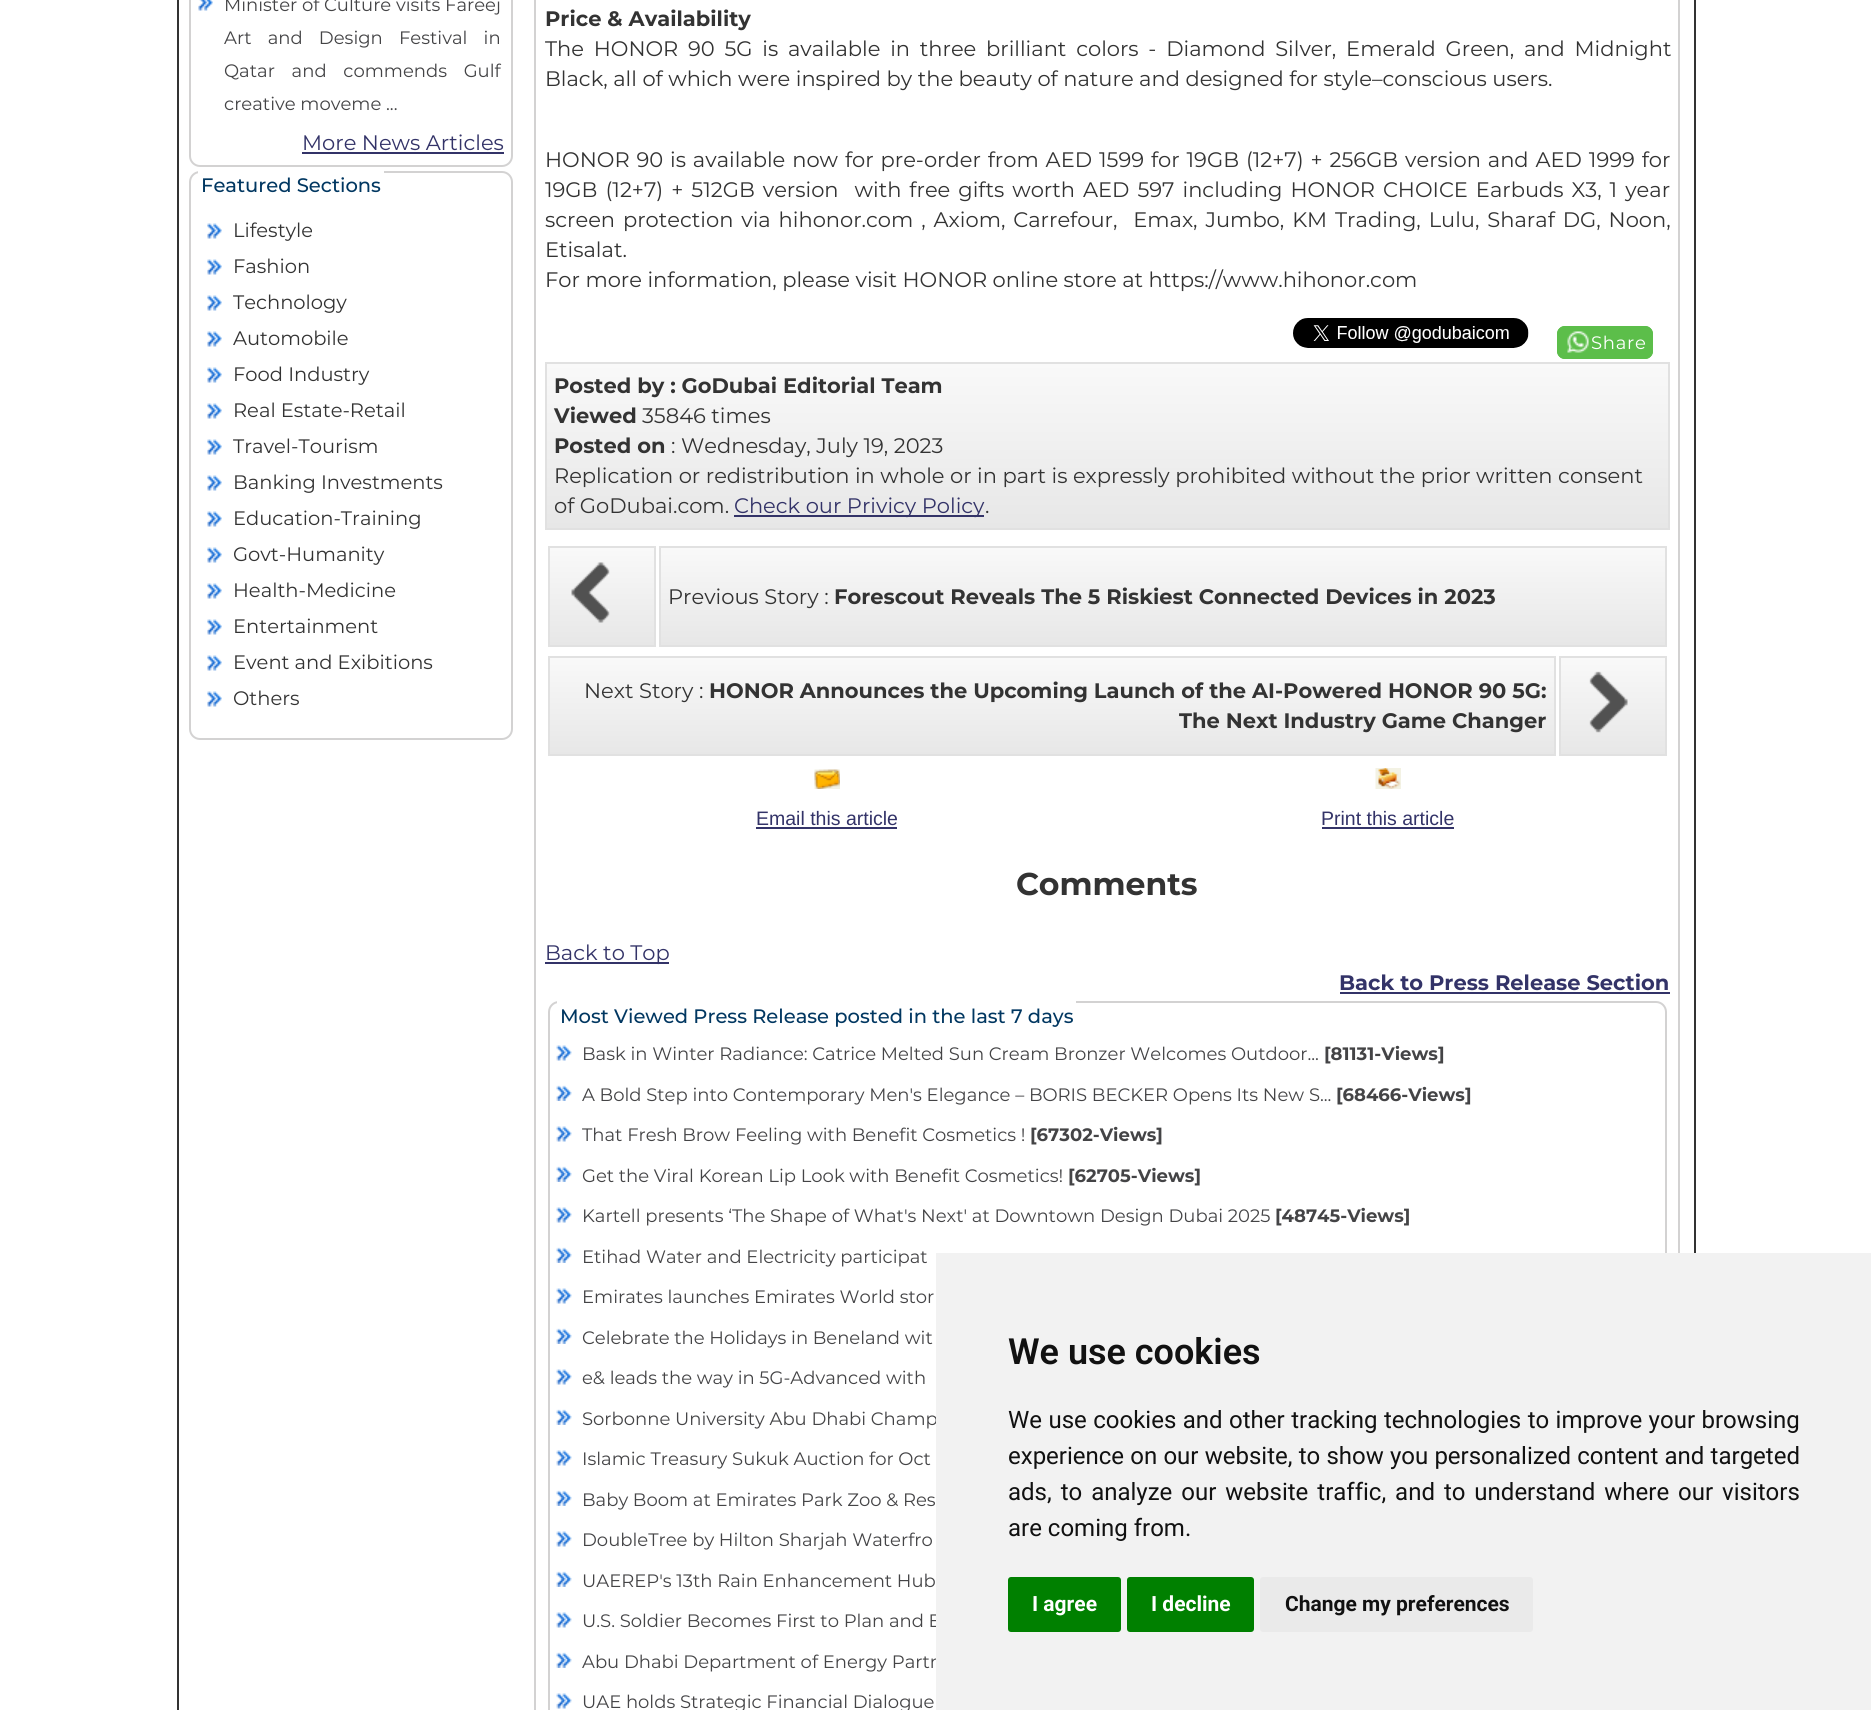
#include <cairo/cairo.h>
#include <math.h>
#include <stddef.h>


static void draw_spaced(cairo_t *cr, double x, double y, const char *s, double letter, double word) {
  cairo_move_to(cr, x, y);
  while (*s) {
    char ch[5] = {0};
    int n = 0;
    do ch[n++] = *s++; while ((*s & 0xC0) == 0x80);
    cairo_show_text(cr, ch);
    cairo_rel_move_to(cr, letter + word * (*ch == ' '), 0);
  }
}

static void rounded_rect(cairo_t *cr, double x, double y, double w, double h, double r) {
  cairo_new_sub_path(cr);
  cairo_arc(cr, x + w - r, y + h - r, r, 0, M_PI / 2);
  cairo_arc(cr, x + r, y + h - r, r, M_PI / 2, M_PI);
  cairo_arc(cr, x + r, y + r, r, M_PI, 1.5 * M_PI);
  cairo_arc(cr, x + w - r, y + r, r, 1.5 * M_PI, 2 * M_PI);
  cairo_close_path(cr);
}

static void draw_image(cairo_t *cr, const char *path, double x, double y, double w, double h) {
  cairo_surface_t *image = cairo_image_surface_create_from_png(path);
  cairo_save(cr);
  cairo_set_source_surface(cr, image, x, y);
  cairo_rectangle(cr, x, y, w, h);
  cairo_fill(cr);
  cairo_restore(cr);
  cairo_surface_destroy(image);
}

static void draw(cairo_t *cr) {
  cairo_pattern_t *gradient;
  cairo_set_source_rgb(cr, 1, 1, 1);
  cairo_paint(cr);
  cairo_set_source_rgb(cr, 51 / 255.0, 51 / 255.0, 51 / 255.0);
  cairo_rectangle(cr, 1694, 0, 2, 1253);
  cairo_fill(cr);
  cairo_rectangle(cr, 177, 0, 2, 1710);
  cairo_fill(cr);
  rounded_rect(cr, 190, -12, 322, 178, 10);
  cairo_set_source_rgb(cr, 211 / 255.0, 210 / 255.0, 210 / 255.0);
  cairo_stroke(cr);
  draw_image(cr, "images/1.png", 198, 0, 15, 11);
  cairo_set_source_rgb(cr, 51 / 255.0, 51 / 255.0, 104 / 255.0);
  cairo_rectangle(cr, 302, 152, 202, 2);
  cairo_fill(cr);
  rounded_rect(cr, 190, 172, 322, 567, 10);
  cairo_set_source_rgb(cr, 211 / 255.0, 210 / 255.0, 210 / 255.0);
  cairo_stroke(cr);
  cairo_set_source_rgb(cr, 1, 1, 1);
  cairo_rectangle(cr, 198, 171, 186, 3);
  cairo_fill(cr);
  draw_image(cr, "images/2.png", 207, 223, 15, 16);
  draw_image(cr, "images/2.png", 207, 259, 15, 16);
  draw_image(cr, "images/2.png", 207, 295, 15, 16);
  draw_image(cr, "images/2.png", 207, 331, 15, 16);
  draw_image(cr, "images/2.png", 207, 367, 15, 16);
  draw_image(cr, "images/2.png", 207, 403, 15, 16);
  draw_image(cr, "images/2.png", 207, 439, 15, 16);
  draw_image(cr, "images/2.png", 207, 475, 15, 16);
  draw_image(cr, "images/2.png", 207, 511, 15, 16);
  draw_image(cr, "images/2.png", 207, 547, 15, 16);
  draw_image(cr, "images/2.png", 207, 583, 15, 16);
  draw_image(cr, "images/2.png", 207, 619, 15, 16);
  draw_image(cr, "images/2.png", 207, 655, 15, 16);
  draw_image(cr, "images/2.png", 207, 691, 15, 16);
  cairo_rectangle(cr, 535, -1, 1144, 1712);
  cairo_set_source_rgb(cr, 211 / 255.0, 210 / 255.0, 210 / 255.0);
  cairo_stroke(cr);
  draw_image(cr, "images/3.png", 1293, 318, 236, 30);
  cairo_set_source_rgb(cr, 92 / 255.0, 190 / 255.0, 74 / 255.0);
  rounded_rect(cr, 1557, 326, 96, 33, 8);
  cairo_fill(cr);
  draw_image(cr, "images/4.png", 1567, 331, 22, 22);
  rounded_rect(cr, 1558, 327, 94, 31, 7);
  cairo_stroke(cr);
  gradient = cairo_pattern_create_linear(1107, 363, 1107, 528);
  cairo_pattern_add_color_stop_rgba(gradient, 0, 249 / 255.0, 249 / 255.0, 249 / 255.0, 1);
  cairo_pattern_add_color_stop_rgba(gradient, 1, 231 / 255.0, 231 / 255.0, 231 / 255.0, 1);
  cairo_set_source(cr, gradient);
  cairo_pattern_destroy(gradient);
  cairo_rectangle(cr, 547, 364, 1121, 164);
  cairo_fill(cr);
  cairo_rectangle(cr, 546, 363, 1123, 166);
  cairo_set_source_rgb(cr, 225 / 255.0, 225 / 255.0, 225 / 255.0);
  cairo_stroke(cr);
  cairo_set_source_rgb(cr, 51 / 255.0, 51 / 255.0, 104 / 255.0);
  cairo_rectangle(cr, 734, 515, 250, 2);
  cairo_fill(cr);
  gradient = cairo_pattern_create_linear(602, 548, 602, 645);
  cairo_pattern_add_color_stop_rgba(gradient, 0, 249 / 255.0, 249 / 255.0, 249 / 255.0, 1);
  cairo_pattern_add_color_stop_rgba(gradient, 1, 231 / 255.0, 231 / 255.0, 231 / 255.0, 1);
  cairo_set_source(cr, gradient);
  cairo_pattern_destroy(gradient);
  cairo_rectangle(cr, 550, 548, 104, 97);
  cairo_fill(cr);
  cairo_rectangle(cr, 549, 547, 106, 99);
  cairo_set_source_rgb(cr, 225 / 255.0, 225 / 255.0, 225 / 255.0);
  cairo_stroke(cr);
  draw_image(cr, "images/5.png", 571, 562, 39, 61);
  gradient = cairo_pattern_create_linear(1163, 547, 1163, 645);
  cairo_pattern_add_color_stop_rgba(gradient, 0, 249 / 255.0, 249 / 255.0, 249 / 255.0, 1);
  cairo_pattern_add_color_stop_rgba(gradient, 1, 231 / 255.0, 231 / 255.0, 231 / 255.0, 1);
  cairo_set_source(cr, gradient);
  cairo_pattern_destroy(gradient);
  cairo_rectangle(cr, 661, 548, 1004, 97);
  cairo_fill(cr);
  cairo_rectangle(cr, 660, 547, 1006, 99);
  cairo_set_source_rgb(cr, 225 / 255.0, 225 / 255.0, 225 / 255.0);
  cairo_stroke(cr);
  gradient = cairo_pattern_create_linear(1052, 657, 1052, 755);
  cairo_pattern_add_color_stop_rgba(gradient, 0, 249 / 255.0, 249 / 255.0, 249 / 255.0, 1);
  cairo_pattern_add_color_stop_rgba(gradient, 1, 231 / 255.0, 231 / 255.0, 231 / 255.0, 1);
  cairo_set_source(cr, gradient);
  cairo_pattern_destroy(gradient);
  cairo_rectangle(cr, 550, 658, 1004, 96);
  cairo_fill(cr);
  cairo_rectangle(cr, 549, 657, 1006, 98);
  cairo_set_source_rgb(cr, 225 / 255.0, 225 / 255.0, 225 / 255.0);
  cairo_stroke(cr);
  gradient = cairo_pattern_create_linear(1613, 657, 1613, 755);
  cairo_pattern_add_color_stop_rgba(gradient, 0, 249 / 255.0, 249 / 255.0, 249 / 255.0, 1);
  cairo_pattern_add_color_stop_rgba(gradient, 1, 231 / 255.0, 231 / 255.0, 231 / 255.0, 1);
  cairo_set_source(cr, gradient);
  cairo_pattern_destroy(gradient);
  cairo_rectangle(cr, 1561, 658, 104, 96);
  cairo_fill(cr);
  cairo_rectangle(cr, 1560, 657, 106, 98);
  cairo_set_source_rgb(cr, 225 / 255.0, 225 / 255.0, 225 / 255.0);
  cairo_stroke(cr);
  draw_image(cr, "images/6.png", 1589, 671, 39, 62);
  draw_image(cr, "images/7.png", 814, 769, 26, 20);
  draw_image(cr, "images/8.png", 1375, 768, 26, 21);
  cairo_set_source_rgb(cr, 51 / 255.0, 51 / 255.0, 104 / 255.0);
  cairo_rectangle(cr, 756, 827, 141, 2);
  cairo_fill(cr);
  cairo_rectangle(cr, 1322, 827, 132, 2);
  cairo_fill(cr);
  cairo_rectangle(cr, 545, 962, 124, 2);
  cairo_fill(cr);
  cairo_rectangle(cr, 1340, 992, 330, 2);
  cairo_fill(cr);
  rounded_rect(cr, 549, 1002, 1117, 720, 10);
  cairo_set_source_rgb(cr, 211 / 255.0, 210 / 255.0, 210 / 255.0);
  cairo_stroke(cr);
  cairo_set_source_rgb(cr, 1, 1, 1);
  cairo_rectangle(cr, 557, 1001, 519, 3);
  cairo_fill(cr);
  draw_image(cr, "images/9.png", 556, 1045, 16, 16);
  draw_image(cr, "images/10.png", 556, 1085, 16, 16);
  draw_image(cr, "images/9.png", 556, 1126, 16, 16);
  draw_image(cr, "images/10.png", 556, 1166, 16, 16);
  draw_image(cr, "images/9.png", 556, 1207, 16, 16);
  draw_image(cr, "images/10.png", 556, 1247, 16, 16);
  draw_image(cr, "images/9.png", 556, 1288, 16, 16);
  draw_image(cr, "images/10.png", 556, 1328, 16, 16);
  draw_image(cr, "images/9.png", 556, 1369, 16, 16);
  draw_image(cr, "images/10.png", 556, 1409, 16, 16);
  draw_image(cr, "images/9.png", 556, 1450, 16, 16);
  draw_image(cr, "images/10.png", 556, 1490, 16, 16);
  draw_image(cr, "images/9.png", 556, 1531, 16, 16);
  draw_image(cr, "images/10.png", 556, 1571, 16, 16);
  draw_image(cr, "images/9.png", 556, 1612, 16, 16);
  draw_image(cr, "images/10.png", 556, 1652, 16, 16);
  draw_image(cr, "images/9.png", 556, 1693, 16, 16);
  cairo_select_font_face(cr, "Montserrat", CAIRO_FONT_SLANT_NORMAL, CAIRO_FONT_WEIGHT_NORMAL);
  cairo_set_font_size(cr, 18);
  cairo_set_source_rgb(cr, 68 / 255.0, 68 / 255.0, 70 / 255.0);
  cairo_move_to(cr, 224, 11);
  cairo_show_text(cr, "Minister of Culture visits Fareej");
  draw_spaced(cr, 224, 44, "Art and Design Festival in", 0, 11.5);
  draw_spaced(cr, 224, 77, "Qatar and commends Gulf", 0, 12);
  cairo_move_to(cr, 224, 110);
  cairo_show_text(cr, "creative moveme ...");
  cairo_set_font_size(cr, 21);
  cairo_set_source_rgb(cr, 51 / 255.0, 51 / 255.0, 104 / 255.0);
  cairo_move_to(cr, 302, 150);
  cairo_show_text(cr, "More News Articles");
  cairo_select_font_face(cr, "Montserrat Medium", CAIRO_FONT_SLANT_NORMAL, CAIRO_FONT_WEIGHT_NORMAL);
  cairo_set_font_size(cr, 19.5);
  cairo_set_source_rgb(cr, 1 / 255.0, 55 / 255.0, 97 / 255.0);
  cairo_move_to(cr, 201, 192);
  cairo_show_text(cr, "Featured Sections");
  cairo_select_font_face(cr, "Montserrat", CAIRO_FONT_SLANT_NORMAL, CAIRO_FONT_WEIGHT_NORMAL);
  cairo_set_source_rgb(cr, 51 / 255.0, 51 / 255.0, 51 / 255.0);
  cairo_move_to(cr, 233, 237);
  cairo_show_text(cr, "Lifestyle");
  cairo_move_to(cr, 233, 273);
  cairo_show_text(cr, "Fashion");
  cairo_move_to(cr, 233, 309);
  cairo_show_text(cr, "Technology");
  cairo_move_to(cr, 233, 345);
  cairo_show_text(cr, "Automobile");
  cairo_move_to(cr, 233, 381);
  cairo_show_text(cr, "Food Industry");
  cairo_move_to(cr, 233, 417);
  cairo_show_text(cr, "Real Estate-Retail");
  cairo_move_to(cr, 233, 453);
  cairo_show_text(cr, "Travel-Tourism");
  cairo_move_to(cr, 233, 489);
  cairo_show_text(cr, "Banking Investments");
  cairo_move_to(cr, 233, 525);
  cairo_show_text(cr, "Education-Training");
  cairo_move_to(cr, 233, 561);
  cairo_show_text(cr, "Govt-Humanity");
  cairo_move_to(cr, 233, 597);
  cairo_show_text(cr, "Health-Medicine");
  cairo_move_to(cr, 233, 633);
  cairo_show_text(cr, "Entertainment");
  cairo_move_to(cr, 233, 669);
  cairo_show_text(cr, "Event and Exibitions");
  cairo_move_to(cr, 233, 705);
  cairo_show_text(cr, "Others");
  cairo_select_font_face(cr, "Montserrat", CAIRO_FONT_SLANT_NORMAL, CAIRO_FONT_WEIGHT_BOLD);
  cairo_set_font_size(cr, 21);
  cairo_move_to(cr, 545, 26);
  cairo_show_text(cr, "Price & Availability");
  cairo_select_font_face(cr, "Montserrat", CAIRO_FONT_SLANT_NORMAL, CAIRO_FONT_WEIGHT_NORMAL);
  draw_spaced(cr, 545, 56, "The HONOR 90 5G is available in three brilliant colors - Diamond Silver, Emerald Green, and Midnight", 0, 4.25);
  cairo_move_to(cr, 545, 86);
  cairo_show_text(cr, "Black, all of which were inspired by the beauty of nature and designed for style–conscious users.");
  draw_spaced(cr, 545, 167, "HONOR 90 is available now for pre-order from AED 1599 for 19GB (12+7) + 256GB version and AED 1999 for", 0, 1.4);
  draw_spaced(cr, 545, 197, "19GB (12+7) + 512GB version  with free gifts worth AED 597 including HONOR CHOICE Earbuds X3, 1 year", 0, 2.5);
  draw_spaced(cr, 545, 227, "screen protection via hihonor.com , Axiom, Carrefour,  Emax, Jumbo, KM Trading, Lulu, Sharaf DG, Noon,", 0, 2.4);
  cairo_move_to(cr, 545, 257);
  cairo_show_text(cr, "Etisalat.");
  cairo_move_to(cr, 545, 287);
  cairo_show_text(cr, "For more information, please visit HONOR online store at https://www.hihonor.com");
  cairo_set_font_size(cr, 18);
  cairo_set_source_rgb(cr, 1, 1, 1);
  draw_spaced(cr, 1591, 349, "Share", 0.75, 0);
  cairo_select_font_face(cr, "Montserrat", CAIRO_FONT_SLANT_NORMAL, CAIRO_FONT_WEIGHT_BOLD);
  cairo_set_font_size(cr, 21);
  cairo_set_source_rgb(cr, 51 / 255.0, 51 / 255.0, 51 / 255.0);
  cairo_move_to(cr, 554, 393);
  cairo_show_text(cr, "Posted by : GoDubai Editorial Team");
  cairo_move_to(cr, 554, 423);
  cairo_show_text(cr, "Viewed");
  cairo_select_font_face(cr, "Montserrat", CAIRO_FONT_SLANT_NORMAL, CAIRO_FONT_WEIGHT_NORMAL);
  cairo_move_to(cr, 642, 423);
  cairo_show_text(cr, "35846 times");
  cairo_select_font_face(cr, "Montserrat", CAIRO_FONT_SLANT_NORMAL, CAIRO_FONT_WEIGHT_BOLD);
  cairo_move_to(cr, 554, 453);
  cairo_show_text(cr, "Posted on");
  cairo_select_font_face(cr, "Montserrat", CAIRO_FONT_SLANT_NORMAL, CAIRO_FONT_WEIGHT_NORMAL);
  cairo_move_to(cr, 671, 453);
  cairo_show_text(cr, ": Wednesday, July 19, 2023");
  cairo_move_to(cr, 554, 483);
  cairo_show_text(cr, "Replication or redistribution in whole or in part is expressly prohibited without the prior written consent");
  cairo_move_to(cr, 554, 513);
  cairo_show_text(cr, "of GoDubai.com.");
  cairo_set_source_rgb(cr, 51 / 255.0, 51 / 255.0, 104 / 255.0);
  cairo_move_to(cr, 734, 513);
  cairo_show_text(cr, "Check our Privicy Policy");
  cairo_set_source_rgb(cr, 51 / 255.0, 51 / 255.0, 51 / 255.0);
  cairo_move_to(cr, 985, 513);
  cairo_show_text(cr, ".");
  cairo_move_to(cr, 668, 604);
  cairo_show_text(cr, "Previous Story :");
  cairo_select_font_face(cr, "Montserrat", CAIRO_FONT_SLANT_NORMAL, CAIRO_FONT_WEIGHT_BOLD);
  cairo_move_to(cr, 834, 604);
  cairo_show_text(cr, "Forescout Reveals The 5 Riskiest Connected Devices in 2023");
  cairo_select_font_face(cr, "Montserrat", CAIRO_FONT_SLANT_NORMAL, CAIRO_FONT_WEIGHT_NORMAL);
  cairo_move_to(cr, 584, 698);
  cairo_show_text(cr, "Next Story :");
  cairo_select_font_face(cr, "Montserrat", CAIRO_FONT_SLANT_NORMAL, CAIRO_FONT_WEIGHT_BOLD);
  cairo_move_to(cr, 709, 698);
  cairo_show_text(cr, "HONOR Announces the Upcoming Launch of the AI-Powered HONOR 90 5G:");
  cairo_move_to(cr, 1179, 728);
  cairo_show_text(cr, "The Next Industry Game Changer");
  cairo_select_font_face(cr, "Liberation Sans", CAIRO_FONT_SLANT_NORMAL, CAIRO_FONT_WEIGHT_NORMAL);
  cairo_set_font_size(cr, 19.5);
  cairo_set_source_rgb(cr, 51 / 255.0, 51 / 255.0, 104 / 255.0);
  cairo_move_to(cr, 756, 825);
  cairo_show_text(cr, "Email this article");
  cairo_move_to(cr, 1321, 825);
  cairo_show_text(cr, "Print this article");
  cairo_select_font_face(cr, "Montserrat", CAIRO_FONT_SLANT_NORMAL, CAIRO_FONT_WEIGHT_BOLD);
  cairo_set_font_size(cr, 31.5);
  cairo_set_source_rgb(cr, 51 / 255.0, 51 / 255.0, 51 / 255.0);
  cairo_move_to(cr, 1016, 895);
  cairo_show_text(cr, "Comments");
  cairo_select_font_face(cr, "Montserrat", CAIRO_FONT_SLANT_NORMAL, CAIRO_FONT_WEIGHT_NORMAL);
  cairo_set_font_size(cr, 21);
  cairo_set_source_rgb(cr, 51 / 255.0, 51 / 255.0, 104 / 255.0);
  cairo_move_to(cr, 545, 960);
  cairo_show_text(cr, "Back to Top");
  cairo_select_font_face(cr, "Montserrat", CAIRO_FONT_SLANT_NORMAL, CAIRO_FONT_WEIGHT_BOLD);
  cairo_move_to(cr, 1339, 990);
  cairo_show_text(cr, "Back to Press Release Section");
  cairo_select_font_face(cr, "Montserrat Medium", CAIRO_FONT_SLANT_NORMAL, CAIRO_FONT_WEIGHT_NORMAL);
  cairo_set_font_size(cr, 19.5);
  cairo_set_source_rgb(cr, 1 / 255.0, 55 / 255.0, 97 / 255.0);
  cairo_move_to(cr, 560, 1023);
  cairo_show_text(cr, "Most Viewed Press Release posted in the last 7 days");
  cairo_select_font_face(cr, "Montserrat", CAIRO_FONT_SLANT_NORMAL, CAIRO_FONT_WEIGHT_NORMAL);
  cairo_set_font_size(cr, 18);
  cairo_set_source_rgb(cr, 68 / 255.0, 68 / 255.0, 70 / 255.0);
  cairo_move_to(cr, 582, 1060);
  cairo_show_text(cr, "Bask in Winter Radiance: Catrice Melted Sun Cream Bronzer Welcomes Outdoor...");
  cairo_select_font_face(cr, "Montserrat", CAIRO_FONT_SLANT_NORMAL, CAIRO_FONT_WEIGHT_BOLD);
  cairo_move_to(cr, 1324, 1060);
  cairo_show_text(cr, "[81131-Views]");
  cairo_select_font_face(cr, "Montserrat", CAIRO_FONT_SLANT_NORMAL, CAIRO_FONT_WEIGHT_NORMAL);
  cairo_move_to(cr, 582, 1101);
  cairo_show_text(cr, "A Bold Step into Contemporary Men's Elegance – BORIS BECKER Opens Its New S...");
  cairo_select_font_face(cr, "Montserrat", CAIRO_FONT_SLANT_NORMAL, CAIRO_FONT_WEIGHT_BOLD);
  cairo_move_to(cr, 1336, 1101);
  cairo_show_text(cr, "[68466-Views]");
  cairo_select_font_face(cr, "Montserrat", CAIRO_FONT_SLANT_NORMAL, CAIRO_FONT_WEIGHT_NORMAL);
  cairo_move_to(cr, 582, 1141);
  cairo_show_text(cr, "That Fresh Brow Feeling with Benefit Cosmetics !");
  cairo_select_font_face(cr, "Montserrat", CAIRO_FONT_SLANT_NORMAL, CAIRO_FONT_WEIGHT_BOLD);
  cairo_move_to(cr, 1030, 1141);
  cairo_show_text(cr, "[67302-Views]");
  cairo_select_font_face(cr, "Montserrat", CAIRO_FONT_SLANT_NORMAL, CAIRO_FONT_WEIGHT_NORMAL);
  cairo_move_to(cr, 582, 1182);
  cairo_show_text(cr, "Get the Viral Korean Lip Look with Benefit Cosmetics!");
  cairo_select_font_face(cr, "Montserrat", CAIRO_FONT_SLANT_NORMAL, CAIRO_FONT_WEIGHT_BOLD);
  cairo_move_to(cr, 1068, 1182);
  cairo_show_text(cr, "[62705-Views]");
  cairo_select_font_face(cr, "Montserrat", CAIRO_FONT_SLANT_NORMAL, CAIRO_FONT_WEIGHT_NORMAL);
  cairo_move_to(cr, 582, 1222);
  cairo_show_text(cr, "Kartell presents ‘The Shape of What's Next' at Downtown Design Dubai 2025");
  cairo_select_font_face(cr, "Montserrat", CAIRO_FONT_SLANT_NORMAL, CAIRO_FONT_WEIGHT_BOLD);
  cairo_move_to(cr, 1275, 1222);
  cairo_show_text(cr, "[48745-Views]");
  cairo_select_font_face(cr, "Montserrat", CAIRO_FONT_SLANT_NORMAL, CAIRO_FONT_WEIGHT_NORMAL);
  cairo_move_to(cr, 582, 1263);
  cairo_show_text(cr, "Etihad Water and Electricity participat");
  cairo_move_to(cr, 582, 1303);
  cairo_show_text(cr, "Emirates launches Emirates World stor");
  cairo_move_to(cr, 582, 1344);
  cairo_show_text(cr, "Celebrate the Holidays in Beneland wit");
  cairo_move_to(cr, 582, 1384);
  cairo_show_text(cr, "e& leads the way in 5G-Advanced with");
  cairo_move_to(cr, 582, 1425);
  cairo_show_text(cr, "Sorbonne University Abu Dhabi Champ");
  cairo_move_to(cr, 582, 1465);
  cairo_show_text(cr, "Islamic Treasury Sukuk Auction for Oct");
  cairo_move_to(cr, 582, 1506);
  cairo_show_text(cr, "Baby Boom at Emirates Park Zoo & Res");
  cairo_move_to(cr, 582, 1546);
  cairo_show_text(cr, "DoubleTree by Hilton Sharjah Waterfro");
  cairo_move_to(cr, 582, 1587);
  cairo_show_text(cr, "UAEREP's 13th Rain Enhancement Hub");
  cairo_move_to(cr, 582, 1627);
  cairo_show_text(cr, "U.S. Soldier Becomes First to Plan and E");
  cairo_move_to(cr, 582, 1668);
  cairo_show_text(cr, "Abu Dhabi Department of Energy Partn");
  cairo_move_to(cr, 582, 1708);
  cairo_show_text(cr, "UAE holds Strategic Financial Dialogue");
  cairo_set_source_rgb(cr, 242 / 255.0, 242 / 255.0, 242 / 255.0);
  cairo_rectangle(cr, 936, 1253, 935, 457);
  cairo_fill(cr);
  cairo_select_font_face(cr, "Roboto SemiBold", CAIRO_FONT_SLANT_NORMAL, CAIRO_FONT_WEIGHT_NORMAL);
  cairo_set_font_size(cr, 36);
  cairo_set_source_rgb(cr, 17 / 255.0, 17 / 255.0, 17 / 255.0);
  cairo_move_to(cr, 1008, 1364);
  cairo_show_text(cr, "We use cookies");
  cairo_select_font_face(cr, "Roboto", CAIRO_FONT_SLANT_NORMAL, CAIRO_FONT_WEIGHT_NORMAL);
  cairo_set_font_size(cr, 24);
  draw_spaced(cr, 1008, 1428, "We use cookies and other tracking technologies to improve your browsing", 0, 0.5);
  draw_spaced(cr, 1008, 1464, "experience on our website, to show you personalized content and targeted", 0, 0.25);
  draw_spaced(cr, 1008, 1500, "ads, to analyze our website traffic, and to understand where our visitors", 0, 3);
  cairo_move_to(cr, 1008, 1536);
  cairo_show_text(cr, "are coming from.");
  cairo_set_source_rgb(cr, 0, 128 / 255.0, 0);
  rounded_rect(cr, 1008, 1577, 113, 55, 3);
  cairo_fill(cr);
  cairo_select_font_face(cr, "Roboto", CAIRO_FONT_SLANT_NORMAL, CAIRO_FONT_WEIGHT_BOLD);
  cairo_set_font_size(cr, 21);
  cairo_set_source_rgb(cr, 1, 1, 1);
  cairo_move_to(cr, 1032, 1611);
  cairo_show_text(cr, "I agree");
  cairo_set_source_rgb(cr, 0, 128 / 255.0, 0);
  rounded_rect(cr, 1127, 1577, 127, 55, 3);
  cairo_fill(cr);
  cairo_set_source_rgb(cr, 1, 1, 1);
  cairo_move_to(cr, 1151, 1611);
  cairo_show_text(cr, "I decline");
  cairo_set_source_rgb(cr, 234 / 255.0, 234 / 255.0, 234 / 255.0);
  rounded_rect(cr, 1260, 1577, 273, 55, 3);
  cairo_fill(cr);
  cairo_set_source_rgb(cr, 17 / 255.0, 17 / 255.0, 17 / 255.0);
  cairo_move_to(cr, 1285, 1611);
  cairo_show_text(cr, "Change my preferences");
}

int main(void) {
  cairo_surface_t *surface = cairo_image_surface_create(CAIRO_FORMAT_RGB24, 1871, 1710);
  cairo_t *cr = cairo_create(surface);
  cairo_font_options_t *options = cairo_font_options_create();
  cairo_font_options_set_hint_metrics(options, CAIRO_HINT_METRICS_OFF);
  cairo_font_options_set_hint_style(options, CAIRO_HINT_STYLE_NONE);
  cairo_set_font_options(cr, options);
  cairo_set_miter_limit(cr, 4);
  draw(cr);
  cairo_surface_write_to_png(surface, "out.png");
  cairo_font_options_destroy(options);
  cairo_destroy(cr);
  cairo_surface_destroy(surface);
  return 0;
}
